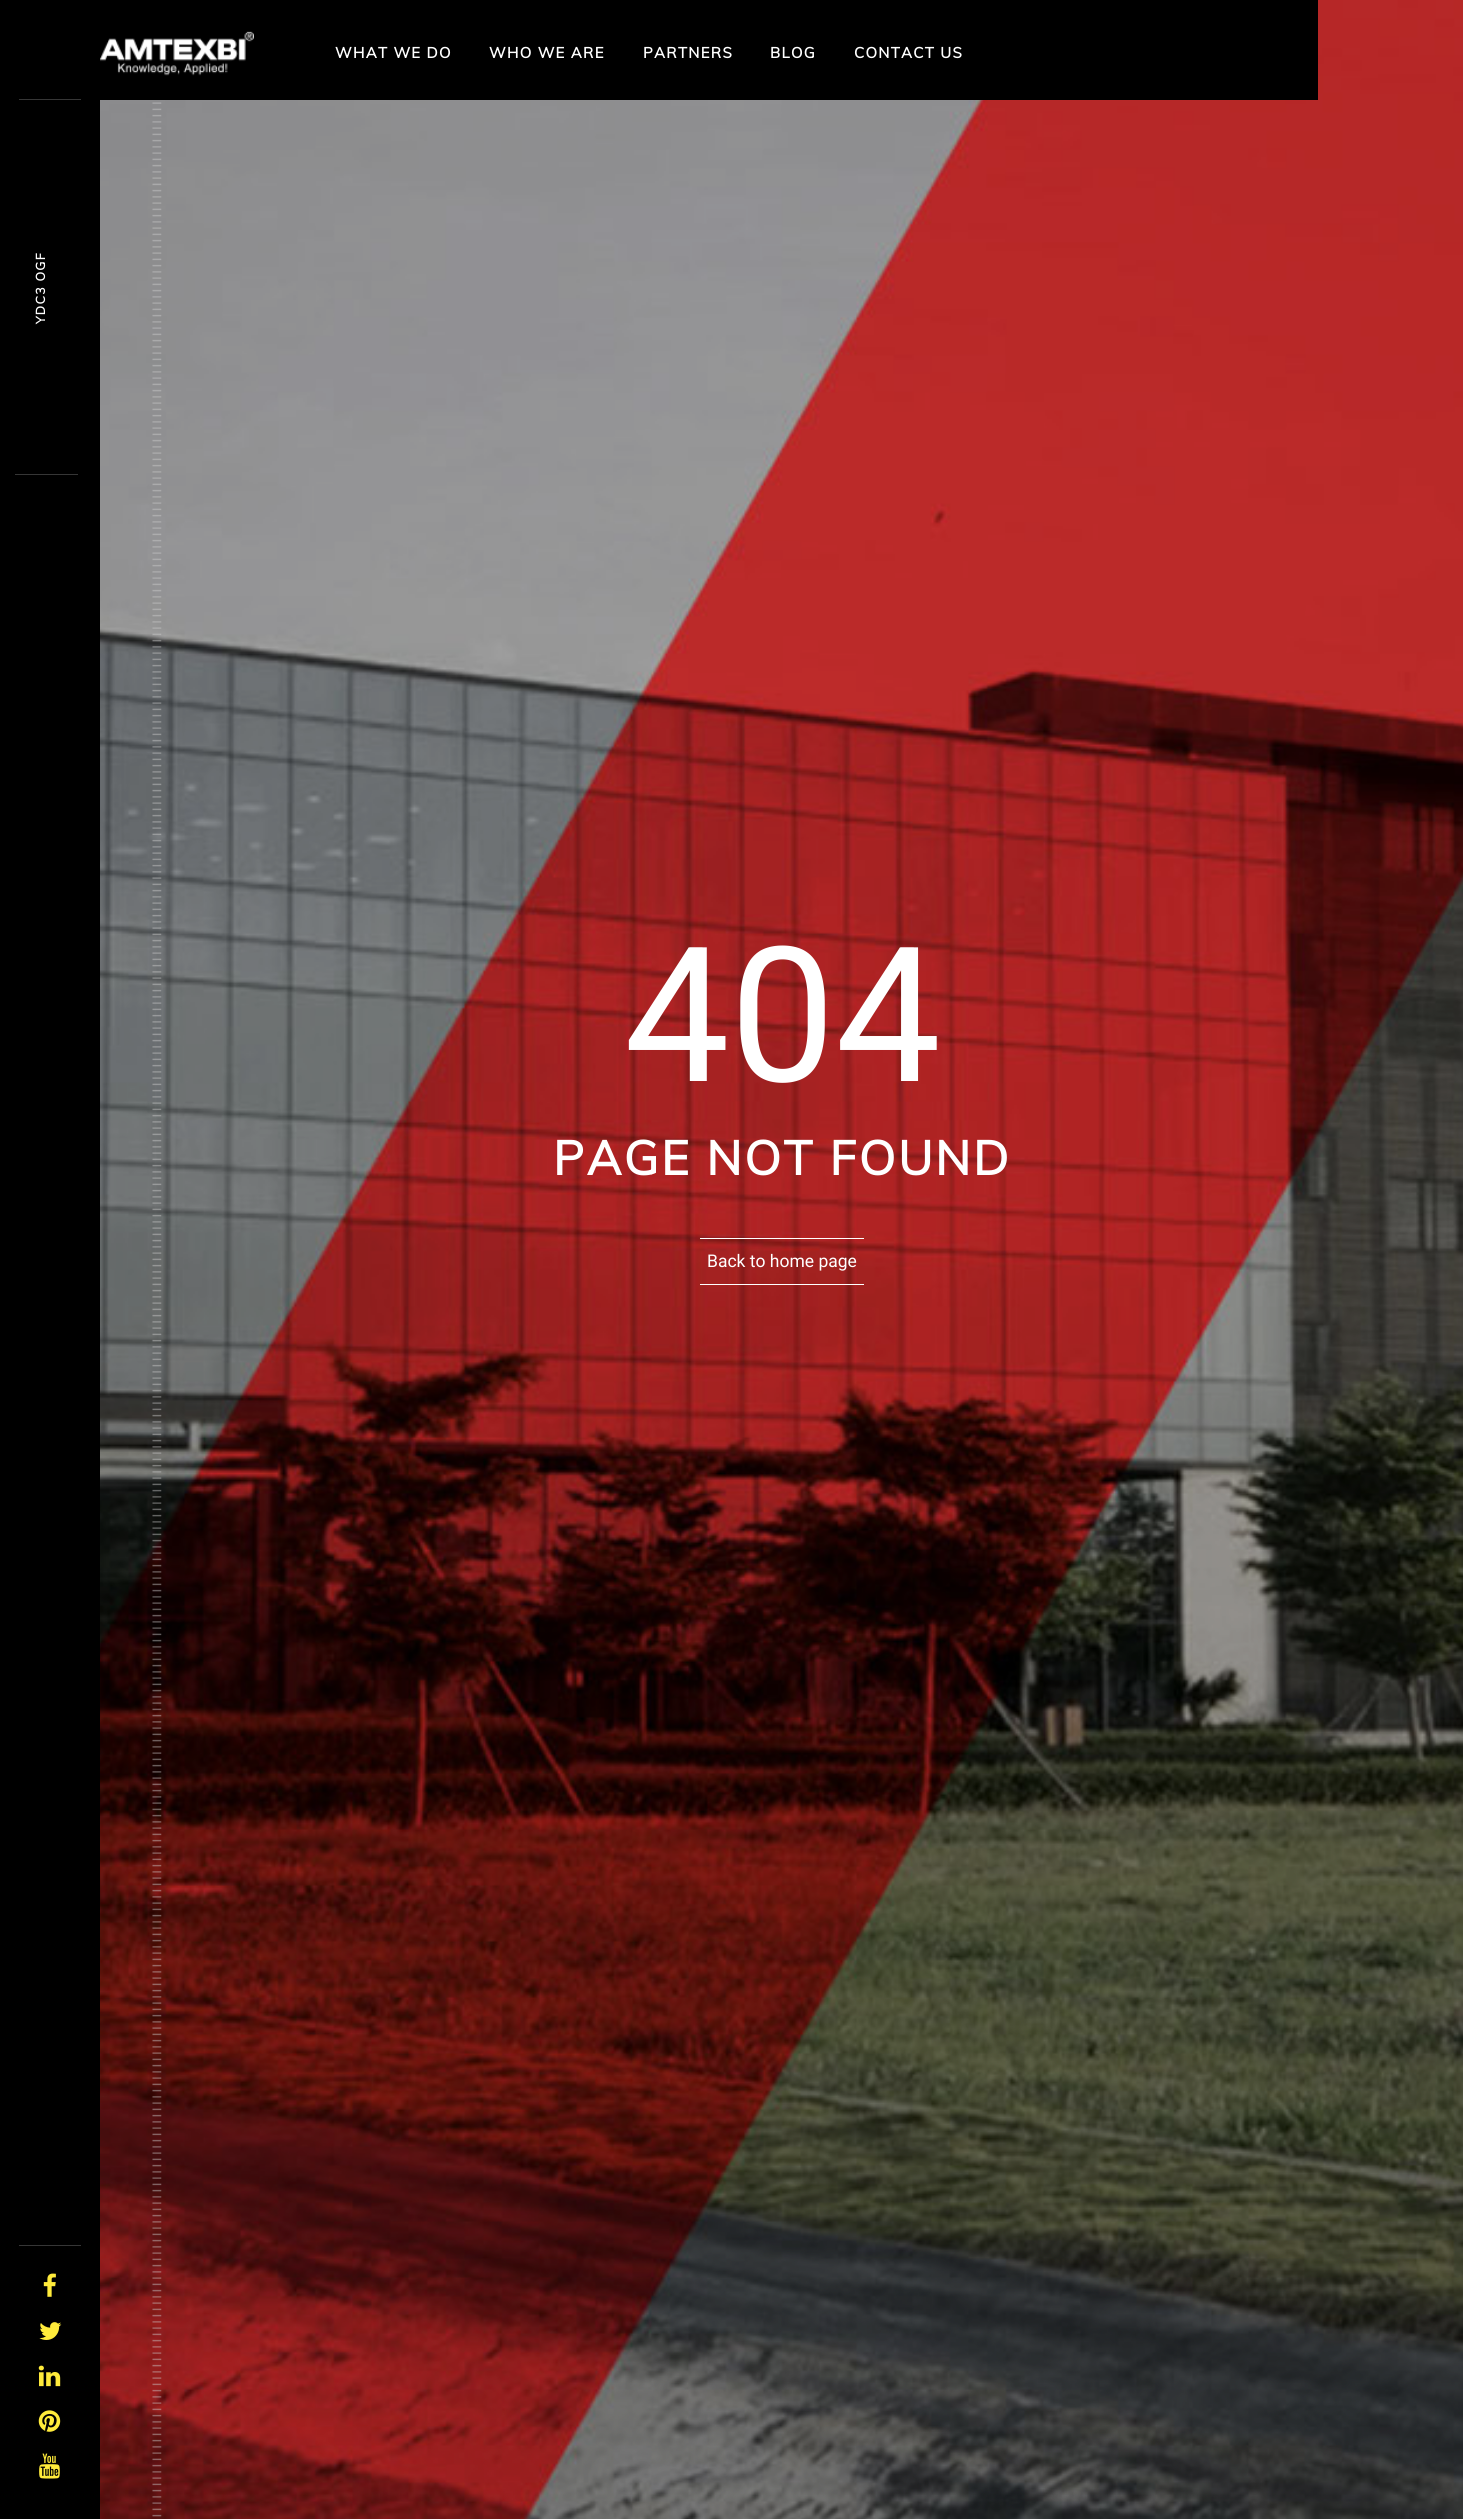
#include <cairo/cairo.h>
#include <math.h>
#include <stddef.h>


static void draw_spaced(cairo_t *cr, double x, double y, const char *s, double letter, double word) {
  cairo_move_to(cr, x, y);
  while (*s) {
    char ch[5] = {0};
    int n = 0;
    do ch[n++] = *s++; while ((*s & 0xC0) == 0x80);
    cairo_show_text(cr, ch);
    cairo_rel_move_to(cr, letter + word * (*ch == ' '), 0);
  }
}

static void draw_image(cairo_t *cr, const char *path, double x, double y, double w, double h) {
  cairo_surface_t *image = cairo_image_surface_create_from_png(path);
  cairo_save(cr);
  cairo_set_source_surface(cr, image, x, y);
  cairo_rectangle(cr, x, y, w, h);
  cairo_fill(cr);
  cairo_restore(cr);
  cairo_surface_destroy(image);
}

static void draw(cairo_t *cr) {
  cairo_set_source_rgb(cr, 1, 1, 1);
  cairo_paint(cr);
  draw_image(cr, "images/8.png", 100, 0, 1363, 2519);
  cairo_set_source_rgb(cr, 0, 0, 0);
  cairo_rectangle(cr, 0, 0, 1318, 100);
  cairo_fill(cr);
  draw_image(cr, "images/1.png", 100, 31, 154, 45);
  cairo_set_source_rgb(cr, 54 / 255.0, 54 / 255.0, 54 / 255.0);
  cairo_rectangle(cr, 19, 99, 62, 1);
  cairo_fill(cr);
  cairo_set_source_rgb(cr, 0, 0, 0);
  cairo_rectangle(cr, 0, 100, 100, 2419);
  cairo_fill(cr);
  cairo_set_source_rgb(cr, 54 / 255.0, 54 / 255.0, 54 / 255.0);
  cairo_rectangle(cr, 15, 474, 63, 1);
  cairo_fill(cr);
  cairo_rectangle(cr, 19, 2245, 62, 1);
  cairo_fill(cr);
  draw_image(cr, "images/2.png", 43, 2273, 13, 24);
  draw_image(cr, "images/3.png", 39, 2322, 23, 18);
  draw_image(cr, "images/4.png", 38, 2365, 23, 22);
  draw_image(cr, "images/5.png", 38, 2410, 23, 22);
  draw_image(cr, "images/6.png", 39, 2453, 21, 26);
  draw_image(cr, "images/7.png", 152, 102, 10, 2415);
  cairo_set_source_rgb(cr, 1, 1, 1);
  cairo_rectangle(cr, 700, 1238, 164, 1);
  cairo_fill(cr);
  cairo_rectangle(cr, 700, 1284, 164, 1);
  cairo_fill(cr);
  cairo_select_font_face(cr, "Muli", CAIRO_FONT_SLANT_NORMAL, CAIRO_FONT_WEIGHT_BOLD);
  cairo_set_font_size(cr, 15);
  draw_spaced(cr, 335, 58, "WHAT WE DO", 1.25, 0);
  draw_spaced(cr, 489, 58, "WHO WE ARE", 1.25, 0);
  draw_spaced(cr, 643, 58, "PARTNERS", 1.25, 0);
  draw_spaced(cr, 770, 58, "BLOG", 1.25, 0);
  draw_spaced(cr, 854, 58, "CONTACT US", 1.25, 0);
  cairo_set_font_size(cr, 12.5);
  cairo_save(cr);
  cairo_translate(cr, 45, 324);
  cairo_rotate(cr, -90 * M_PI / 180);
  draw_spaced(cr, 0, 0, "YDC3 OGF", 1.25, 0);
  cairo_restore(cr);
  cairo_select_font_face(cr, "Roboto", CAIRO_FONT_SLANT_NORMAL, CAIRO_FONT_WEIGHT_NORMAL);
  cairo_set_font_size(cr, 188);
  cairo_move_to(cr, 624, 1081);
  cairo_show_text(cr, "404");
  cairo_select_font_face(cr, "Muli", CAIRO_FONT_SLANT_NORMAL, CAIRO_FONT_WEIGHT_BOLD);
  cairo_set_font_size(cr, 47.5);
  draw_spaced(cr, 553, 1175, "PAGE NOT FOUND", 2.5, 0);
  cairo_select_font_face(cr, "Roboto", CAIRO_FONT_SLANT_NORMAL, CAIRO_FONT_WEIGHT_NORMAL);
  cairo_set_font_size(cr, 17.5);
  cairo_move_to(cr, 707, 1267);
  cairo_show_text(cr, "Back to home page");
}

int main(void) {
  cairo_surface_t *surface = cairo_image_surface_create(CAIRO_FORMAT_RGB24, 1463, 2519);
  cairo_t *cr = cairo_create(surface);
  cairo_font_options_t *options = cairo_font_options_create();
  cairo_font_options_set_hint_metrics(options, CAIRO_HINT_METRICS_OFF);
  cairo_font_options_set_hint_style(options, CAIRO_HINT_STYLE_NONE);
  cairo_set_font_options(cr, options);
  cairo_set_miter_limit(cr, 4);
  draw(cr);
  cairo_surface_write_to_png(surface, "out.png");
  cairo_font_options_destroy(options);
  cairo_destroy(cr);
  cairo_surface_destroy(surface);
  return 0;
}
